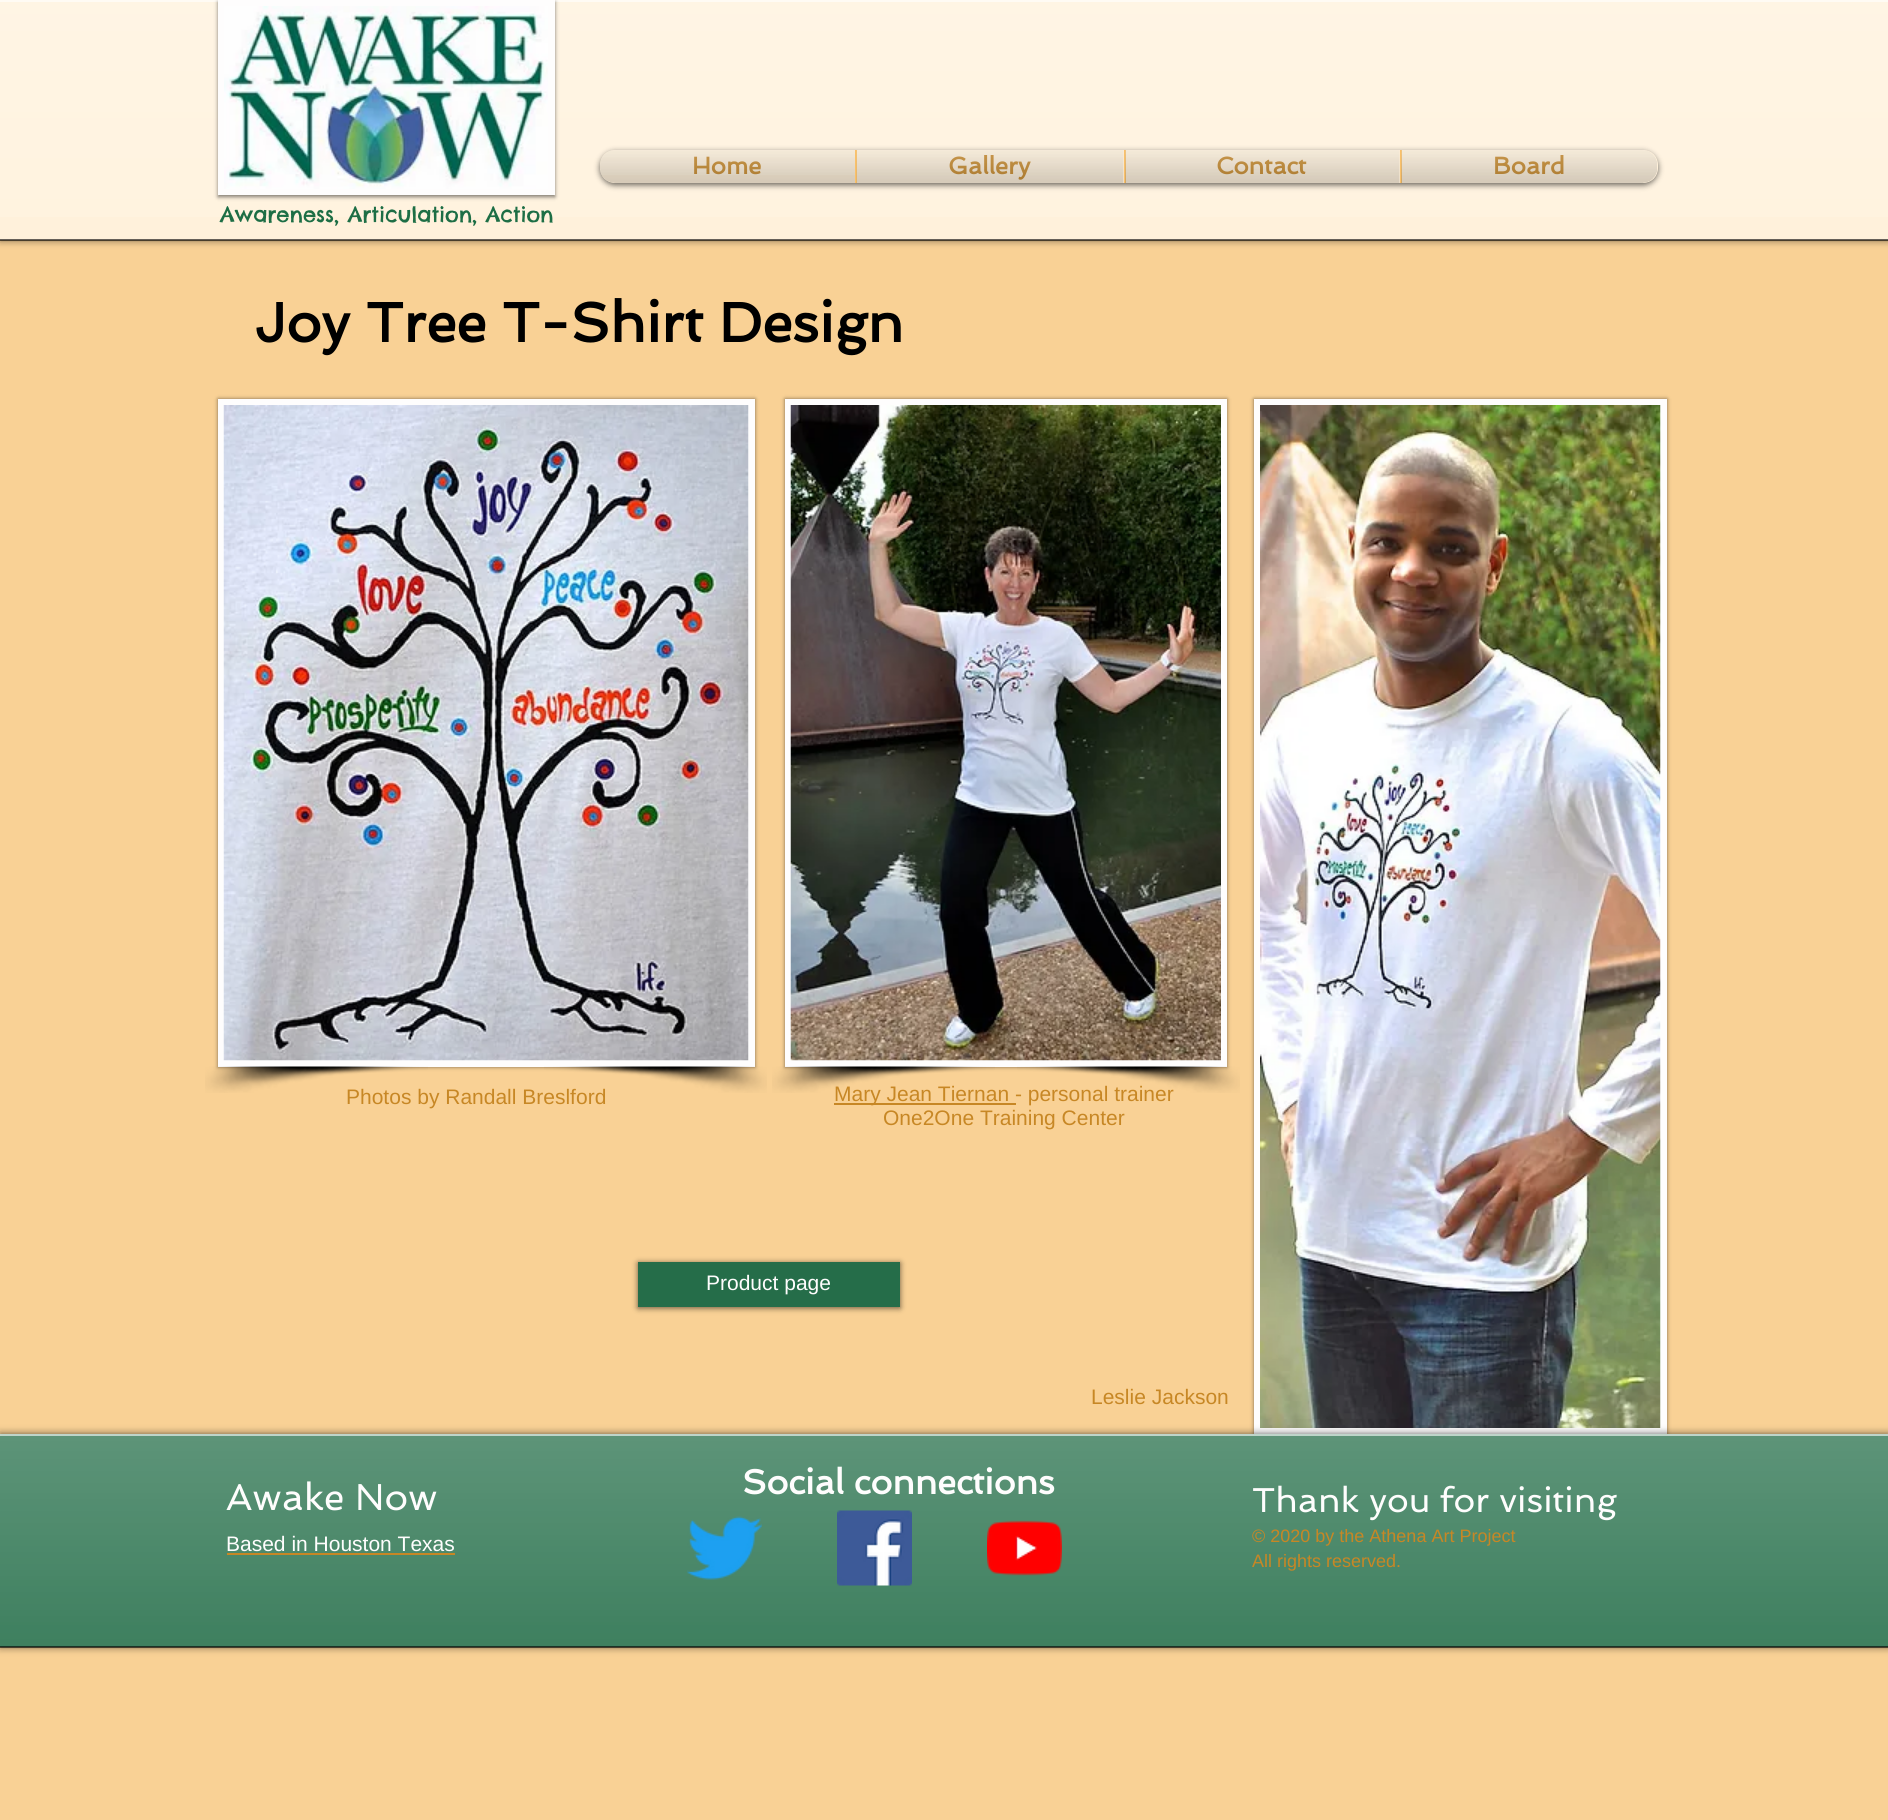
#include <cairo/cairo.h>
#include <math.h>
#include <stddef.h>


static void rounded_rect(cairo_t *cr, double x, double y, double w, double h, double r) {
  cairo_new_sub_path(cr);
  cairo_arc(cr, x + w - r, y + h - r, r, 0, M_PI / 2);
  cairo_arc(cr, x + r, y + h - r, r, M_PI / 2, M_PI);
  cairo_arc(cr, x + r, y + r, r, M_PI, 1.5 * M_PI);
  cairo_arc(cr, x + w - r, y + r, r, 1.5 * M_PI, 2 * M_PI);
  cairo_close_path(cr);
}

static void draw_shadow(cairo_t *cr, double x, double y, double w, double h, double r, double blur, double alpha) {
  cairo_push_group_with_content(cr, CAIRO_CONTENT_ALPHA);
  cairo_set_operator(cr, CAIRO_OPERATOR_SOURCE);
  for (int i = 15; i >= -15 && fmin(w, h) + blur * i / 3 > 0; i -= 2) {
    double e = blur * i / 6;
    cairo_set_source_rgba(cr, 0, 0, 0, alpha * erfc((i - 1) / 8.5) / 2);
    rounded_rect(cr, x - e, y - e, w + 2 * e, h + 2 * e, fmax(0, fmin(r + e + blur * .6, fmin(w, h) / 2 + e)));
    cairo_fill(cr);
  }
  cairo_pattern_t *soft = cairo_pop_group(cr);
  cairo_mask(cr, soft);
  cairo_pattern_destroy(soft);
}

static void draw_image(cairo_t *cr, const char *path, double x, double y, double w, double h) {
  cairo_surface_t *image = cairo_image_surface_create_from_png(path);
  cairo_save(cr);
  cairo_set_source_surface(cr, image, x, y);
  cairo_rectangle(cr, x, y, w, h);
  cairo_fill(cr);
  cairo_restore(cr);
  cairo_surface_destroy(image);
}

static void draw(cairo_t *cr) {
  cairo_set_source_rgb(cr, 249 / 255.0, 209 / 255.0, 149 / 255.0);
  cairo_paint(cr);
  cairo_set_source_rgb(cr, 0, 0, 0);
  draw_shadow(cr, 0, 0, 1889, 240, 0, 4, 0.6);
  cairo_set_source_rgb(cr, 1, 241 / 255.0, 219 / 255.0);
  cairo_rectangle(cr, 0, 2, 1888, 238);
  cairo_fill(cr);
  draw_image(cr, "images/1.png", 0, 2, 1888, 215);
  cairo_set_source_rgba(cr, 0, 0, 0, 0.6);
  cairo_rectangle(cr, 0, 239, 1888, 2);
  cairo_fill(cr);
  cairo_set_source_rgb(cr, 1, 251 / 255.0, 244 / 255.0);
  cairo_rectangle(cr, 0, 0, 1888, 2);
  cairo_fill(cr);
  cairo_set_source_rgb(cr, 0, 0, 0);
  draw_shadow(cr, 218, 2, 337, 195, 0, 2, 0.5);
  cairo_set_source_rgb(cr, 254 / 255.0, 253 / 255.0, 253 / 255.0);
  cairo_rectangle(cr, 218, 0, 337, 195);
  cairo_fill(cr);
  draw_image(cr, "images/2.png", 224, 6, 324, 183);
  cairo_set_source_rgb(cr, 0, 0, 0);
  draw_shadow(cr, 600, 152, 1058, 33, 15, 3, 0.6);
  draw_image(cr, "images/3.png", 600, 150, 1057, 25);
  draw_image(cr, "images/4.png", 600, 150, 1057, 33);
  cairo_set_source_rgb(cr, 1, 241 / 255.0, 219 / 255.0);
  cairo_new_path(cr);
  cairo_move_to(cr, 615, 150);
  cairo_line_to(cr, 855, 150);
  cairo_line_to(cr, 855, 183);
  cairo_line_to(cr, 615, 183);
  cairo_curve_to(cr, 606.5, 183, 600, 176.5, 600, 168);
  cairo_line_to(cr, 600, 165);
  cairo_curve_to(cr, 600, 156.5, 606.5, 150, 615, 150);
  cairo_close_path(cr);
  cairo_fill(cr);
  cairo_rectangle(cr, 857, 150, 267, 33);
  cairo_fill(cr);
  cairo_set_source_rgb(cr, 250 / 255.0, 193 / 255.0, 106 / 255.0);
  cairo_rectangle(cr, 855, 150, 2, 33);
  cairo_fill(cr);
  cairo_set_source_rgb(cr, 1, 241 / 255.0, 219 / 255.0);
  cairo_rectangle(cr, 1126, 150, 274, 33);
  cairo_fill(cr);
  cairo_set_source_rgb(cr, 250 / 255.0, 193 / 255.0, 106 / 255.0);
  cairo_rectangle(cr, 1124, 150, 2, 33);
  cairo_fill(cr);
  cairo_set_source_rgb(cr, 1, 241 / 255.0, 219 / 255.0);
  cairo_new_path(cr);
  cairo_move_to(cr, 1400, 150);
  cairo_line_to(cr, 1643, 150);
  cairo_curve_to(cr, 1651.5, 150, 1658, 156.5, 1658, 165);
  cairo_line_to(cr, 1658, 168);
  cairo_curve_to(cr, 1658, 176.5, 1651.5, 183, 1643, 183);
  cairo_line_to(cr, 1400, 183);
  cairo_close_path(cr);
  cairo_fill(cr);
  cairo_set_source_rgb(cr, 250 / 255.0, 193 / 255.0, 106 / 255.0);
  cairo_rectangle(cr, 1400, 150, 2, 33);
  cairo_fill(cr);
  cairo_set_source_rgb(cr, 0, 0, 0);
  draw_shadow(cr, 218, 399, 537, 668, 0, 2, 0.5);
  cairo_set_source_rgb(cr, 254 / 255.0, 253 / 255.0, 253 / 255.0);
  cairo_rectangle(cr, 218, 399, 537, 668);
  cairo_fill(cr);
  draw_image(cr, "images/13.png", 223, 405, 526, 656);
  draw_image(cr, "images/14.png", 205, 1066, 223, 27);
  draw_image(cr, "images/15.png", 544, 1066, 223, 27);
  cairo_set_source_rgb(cr, 0, 0, 0);
  draw_shadow(cr, 785, 399, 442, 668, 0, 2, 0.5);
  cairo_set_source_rgb(cr, 254 / 255.0, 253 / 255.0, 253 / 255.0);
  cairo_rectangle(cr, 785, 399, 442, 668);
  cairo_fill(cr);
  draw_image(cr, "images/16.png", 790, 405, 431, 656);
  draw_image(cr, "images/14.png", 772, 1066, 223, 27);
  draw_image(cr, "images/17.png", 1017, 1066, 223, 27);
  cairo_set_source_rgb(cr, 0, 0, 0);
  draw_shadow(cr, 1254, 399, 413, 1035, 0, 2, 0.5);
  cairo_set_source_rgb(cr, 254 / 255.0, 253 / 255.0, 253 / 255.0);
  cairo_rectangle(cr, 1254, 399, 413, 1035);
  cairo_fill(cr);
  draw_image(cr, "images/18.png", 1260, 405, 401, 1023);
  cairo_set_source_rgb(cr, 199 / 255.0, 135 / 255.0, 37 / 255.0);
  cairo_rectangle(cr, 834, 1103, 182, 2);
  cairo_fill(cr);
  cairo_set_source_rgb(cr, 0, 0, 0);
  draw_shadow(cr, 638, 1263, 262, 45, 0, 3, 0.6);
  cairo_set_source_rgb(cr, 37 / 255.0, 109 / 255.0, 73 / 255.0);
  cairo_rectangle(cr, 638, 1262, 262, 45);
  cairo_fill(cr);
  cairo_set_source_rgb(cr, 0, 0, 0);
  draw_shadow(cr, 0, 1434, 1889, 213, 0, 4, 0.6);
  cairo_set_source_rgb(cr, 37 / 255.0, 111 / 255.0, 74 / 255.0);
  cairo_rectangle(cr, 0, 1436, 1888, 211);
  cairo_fill(cr);
  draw_image(cr, "images/19.png", 0, 1436, 1888, 211);
  cairo_set_source_rgba(cr, 0, 0, 0, 0.6);
  cairo_rectangle(cr, 0, 1646, 1888, 2);
  cairo_fill(cr);
  cairo_set_source_rgb(cr, 190 / 255.0, 212 / 255.0, 201 / 255.0);
  cairo_rectangle(cr, 0, 1434, 1888, 2);
  cairo_fill(cr);
  cairo_set_source_rgb(cr, 199 / 255.0, 135 / 255.0, 37 / 255.0);
  cairo_rectangle(cr, 227, 1553, 228, 2);
  cairo_fill(cr);
  draw_image(cr, "images/20.png", 687, 1516, 75, 64);
  draw_image(cr, "images/21.png", 837, 1510, 75, 76);
  draw_image(cr, "images/22.png", 987, 1520, 75, 56);
  cairo_select_font_face(cr, "Spinnaker", CAIRO_FONT_SLANT_NORMAL, CAIRO_FONT_WEIGHT_BOLD);
  cairo_set_font_size(cr, 24);
  cairo_move_to(cr, 692, 174);
  cairo_show_text(cr, "Home");
  draw_image(cr, "images/5.png", 600, 150, 255, 25);
  draw_image(cr, "images/6.png", 600, 150, 255, 33);
  cairo_move_to(cr, 948, 174);
  cairo_show_text(cr, "Gallery");
  draw_image(cr, "images/7.png", 856, 150, 267, 33);
  draw_image(cr, "images/8.png", 856, 150, 268, 33);
  cairo_move_to(cr, 1216, 174);
  cairo_show_text(cr, "Contact");
  draw_image(cr, "images/9.png", 1125, 150, 274, 33);
  draw_image(cr, "images/10.png", 1125, 150, 275, 33);
  cairo_move_to(cr, 1493, 174);
  cairo_show_text(cr, "Board");
  draw_image(cr, "images/11.png", 1401, 150, 256, 33);
  draw_image(cr, "images/12.png", 1401, 150, 256, 33);
  cairo_select_font_face(cr, "Chelsea Market", CAIRO_FONT_SLANT_NORMAL, CAIRO_FONT_WEIGHT_NORMAL);
  cairo_set_font_size(cr, 21);
  cairo_set_source_rgb(cr, 29 / 255.0, 110 / 255.0, 69 / 255.0);
  cairo_move_to(cr, 220, 222);
  cairo_show_text(cr, "Awareness, Articulation, Action");
  cairo_select_font_face(cr, "Spinnaker", CAIRO_FONT_SLANT_NORMAL, CAIRO_FONT_WEIGHT_BOLD);
  cairo_set_font_size(cr, 55.5);
  cairo_set_source_rgb(cr, 0, 0, 0);
  cairo_move_to(cr, 254, 342);
  cairo_show_text(cr, "Joy Tree T-Shirt Design");
  cairo_select_font_face(cr, "Liberation Sans", CAIRO_FONT_SLANT_NORMAL, CAIRO_FONT_WEIGHT_NORMAL);
  cairo_set_font_size(cr, 21);
  cairo_set_source_rgb(cr, 199 / 255.0, 135 / 255.0, 37 / 255.0);
  cairo_move_to(cr, 346, 1104);
  cairo_show_text(cr, "Photos by Randall Breslford");
  cairo_move_to(cr, 834, 1101);
  cairo_show_text(cr, "Mary Jean Tiernan - personal trainer");
  cairo_move_to(cr, 883, 1125);
  cairo_show_text(cr, "One2One Training Center");
  cairo_set_source_rgb(cr, 254 / 255.0, 253 / 255.0, 253 / 255.0);
  cairo_move_to(cr, 706, 1290);
  cairo_show_text(cr, "Product page");
  cairo_set_source_rgb(cr, 199 / 255.0, 135 / 255.0, 37 / 255.0);
  cairo_move_to(cr, 1091, 1404);
  cairo_show_text(cr, "Leslie Jackson");
  cairo_select_font_face(cr, "Spinnaker", CAIRO_FONT_SLANT_NORMAL, CAIRO_FONT_WEIGHT_NORMAL);
  cairo_set_font_size(cr, 37.5);
  cairo_set_source_rgb(cr, 254 / 255.0, 253 / 255.0, 253 / 255.0);
  cairo_move_to(cr, 226, 1510);
  cairo_show_text(cr, "Awake Now");
  cairo_select_font_face(cr, "Spinnaker", CAIRO_FONT_SLANT_NORMAL, CAIRO_FONT_WEIGHT_BOLD);
  cairo_set_font_size(cr, 34.5);
  cairo_move_to(cr, 742, 1494);
  cairo_show_text(cr, "Social connections");
  cairo_select_font_face(cr, "Spinnaker", CAIRO_FONT_SLANT_NORMAL, CAIRO_FONT_WEIGHT_NORMAL);
  cairo_move_to(cr, 1252, 1512);
  cairo_show_text(cr, "Thank you for visiting");
  cairo_select_font_face(cr, "Liberation Sans", CAIRO_FONT_SLANT_NORMAL, CAIRO_FONT_WEIGHT_NORMAL);
  cairo_set_font_size(cr, 18);
  cairo_set_source_rgb(cr, 199 / 255.0, 135 / 255.0, 37 / 255.0);
  cairo_move_to(cr, 1252, 1542);
  cairo_show_text(cr, "© 2020 by the Athena Art Project");
  cairo_move_to(cr, 1252, 1567);
  cairo_show_text(cr, "All rights reserved.");
  cairo_set_font_size(cr, 21);
  cairo_set_source_rgb(cr, 254 / 255.0, 253 / 255.0, 253 / 255.0);
  cairo_move_to(cr, 226, 1551);
  cairo_show_text(cr, "Based in Houston Texas");
}

int main(void) {
  cairo_surface_t *surface = cairo_image_surface_create(CAIRO_FORMAT_RGB24, 1888, 1820);
  cairo_t *cr = cairo_create(surface);
  cairo_font_options_t *options = cairo_font_options_create();
  cairo_font_options_set_hint_metrics(options, CAIRO_HINT_METRICS_OFF);
  cairo_font_options_set_hint_style(options, CAIRO_HINT_STYLE_NONE);
  cairo_set_font_options(cr, options);
  cairo_set_miter_limit(cr, 4);
  draw(cr);
  cairo_surface_write_to_png(surface, "out.png");
  cairo_font_options_destroy(options);
  cairo_destroy(cr);
  cairo_surface_destroy(surface);
  return 0;
}
